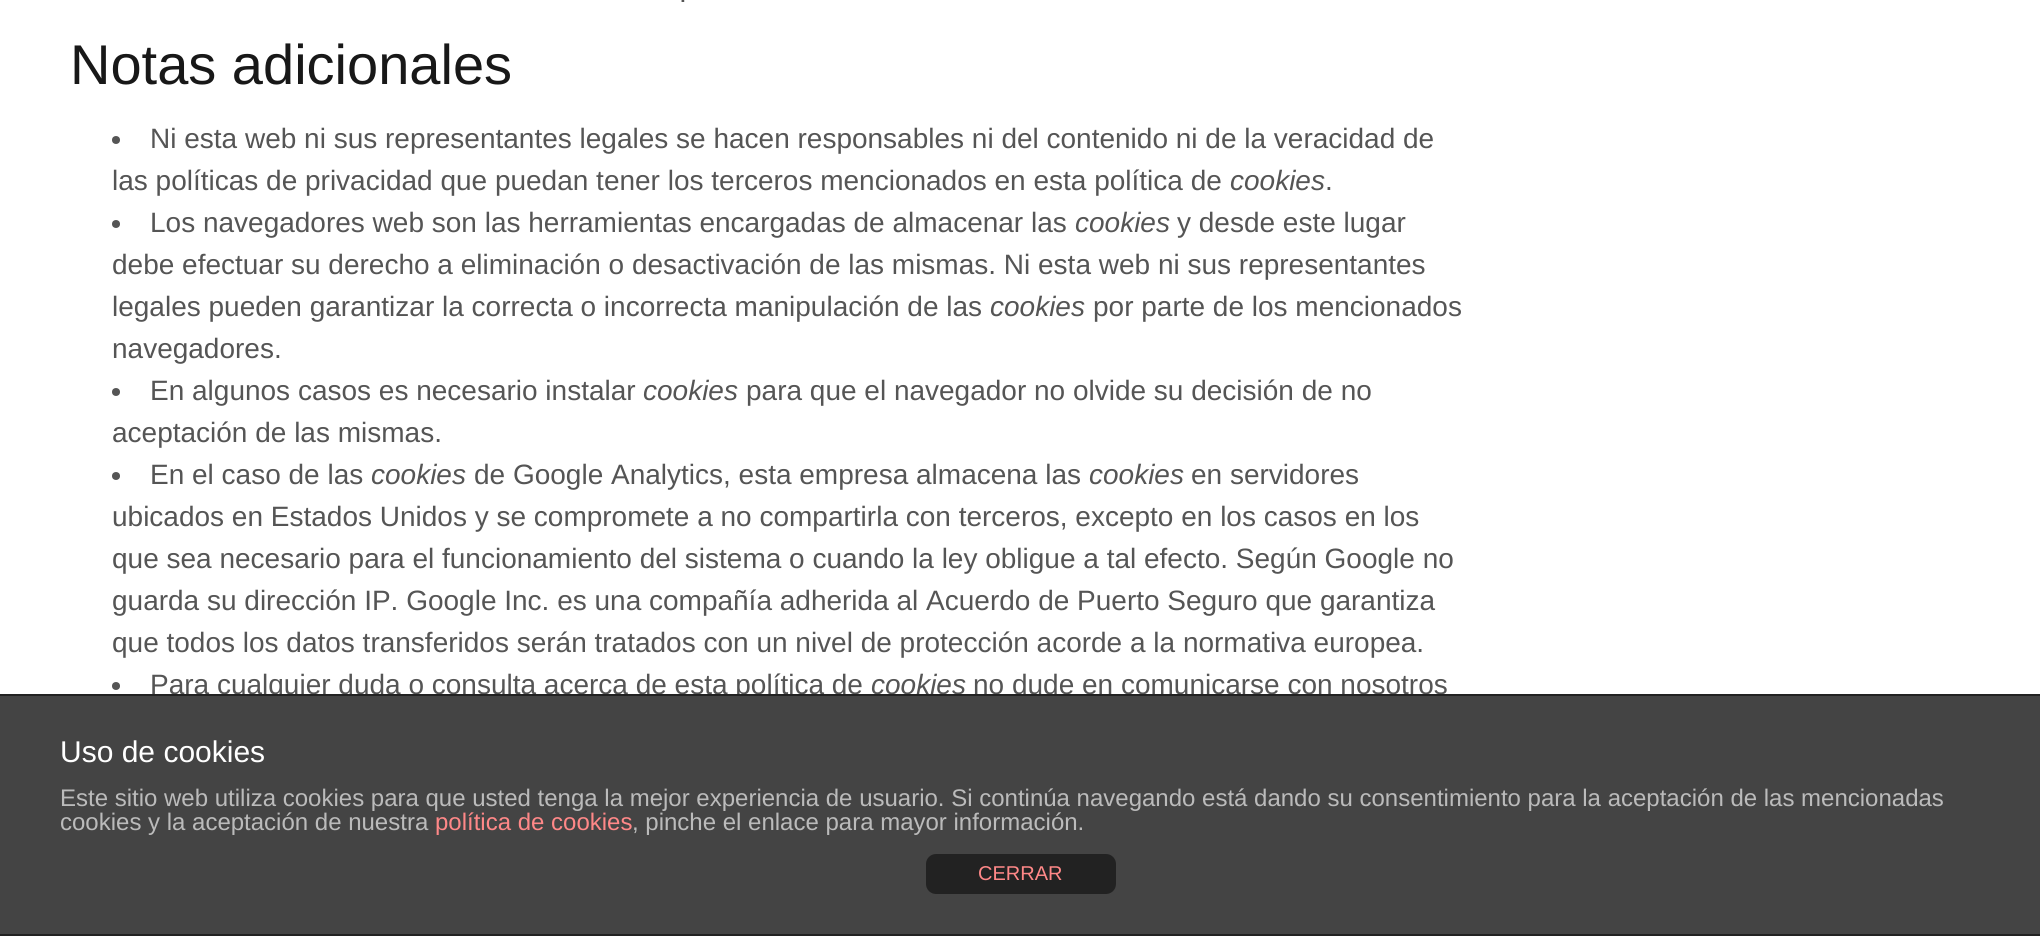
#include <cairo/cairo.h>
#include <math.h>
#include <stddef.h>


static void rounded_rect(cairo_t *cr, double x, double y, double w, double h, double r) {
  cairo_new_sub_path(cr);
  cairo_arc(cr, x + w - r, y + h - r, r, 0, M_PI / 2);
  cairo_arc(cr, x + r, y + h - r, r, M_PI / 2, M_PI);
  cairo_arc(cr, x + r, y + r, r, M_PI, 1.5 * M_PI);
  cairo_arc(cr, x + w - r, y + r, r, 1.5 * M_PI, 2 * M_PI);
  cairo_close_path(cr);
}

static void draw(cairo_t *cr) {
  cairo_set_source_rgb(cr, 1, 1, 1);
  cairo_paint(cr);
  cairo_set_source_rgb(cr, 85 / 255.0, 85 / 255.0, 85 / 255.0);
  cairo_arc(cr, 116, 140, 4, 0, 2 * M_PI);
  cairo_fill(cr);
  cairo_arc(cr, 116, 224, 4, 0, 2 * M_PI);
  cairo_fill(cr);
  cairo_arc(cr, 116, 392, 4, 0, 2 * M_PI);
  cairo_fill(cr);
  cairo_arc(cr, 116, 476, 4, 0, 2 * M_PI);
  cairo_fill(cr);
  cairo_arc(cr, 116, 686, 4, 0, 2 * M_PI);
  cairo_fill(cr);
  cairo_set_source_rgb(cr, 34 / 255.0, 34 / 255.0, 34 / 255.0);
  cairo_rectangle(cr, 0, 934, 2040, 2);
  cairo_fill(cr);
  cairo_select_font_face(cr, "Liberation Sans", CAIRO_FONT_SLANT_NORMAL, CAIRO_FONT_WEIGHT_NORMAL);
  cairo_set_font_size(cr, 28);
  cairo_set_source_rgb(cr, 85 / 255.0, 85 / 255.0, 85 / 255.0);
  cairo_move_to(cr, 679, 2);
  cairo_show_text(cr, ".");
  cairo_set_font_size(cr, 56);
  cairo_set_source_rgb(cr, 24 / 255.0, 24 / 255.0, 24 / 255.0);
  cairo_move_to(cr, 70, 84);
  cairo_show_text(cr, "Notas adicionales");
  cairo_set_font_size(cr, 28);
  cairo_set_source_rgb(cr, 85 / 255.0, 85 / 255.0, 85 / 255.0);
  cairo_move_to(cr, 150, 148);
  cairo_show_text(cr, "Ni esta web ni sus representantes legales se hacen responsables ni del contenido ni de la veracidad de");
  cairo_move_to(cr, 112, 190);
  cairo_show_text(cr, "las políticas de privacidad que puedan tener los terceros mencionados en esta política de");
  cairo_select_font_face(cr, "Liberation Sans", CAIRO_FONT_SLANT_ITALIC, CAIRO_FONT_WEIGHT_NORMAL);
  cairo_move_to(cr, 1230, 190);
  cairo_show_text(cr, "cookies");
  cairo_select_font_face(cr, "Liberation Sans", CAIRO_FONT_SLANT_NORMAL, CAIRO_FONT_WEIGHT_NORMAL);
  cairo_move_to(cr, 1325, 190);
  cairo_show_text(cr, ".");
  cairo_move_to(cr, 150, 232);
  cairo_show_text(cr, "Los navegadores web son las herramientas encargadas de almacenar las");
  cairo_select_font_face(cr, "Liberation Sans", CAIRO_FONT_SLANT_ITALIC, CAIRO_FONT_WEIGHT_NORMAL);
  cairo_move_to(cr, 1075, 232);
  cairo_show_text(cr, "cookies");
  cairo_select_font_face(cr, "Liberation Sans", CAIRO_FONT_SLANT_NORMAL, CAIRO_FONT_WEIGHT_NORMAL);
  cairo_move_to(cr, 1177, 232);
  cairo_show_text(cr, "y desde este lugar");
  cairo_move_to(cr, 112, 274);
  cairo_show_text(cr, "debe efectuar su derecho a eliminación o desactivación de las mismas. Ni esta web ni sus representantes");
  cairo_move_to(cr, 112, 316);
  cairo_show_text(cr, "legales pueden garantizar la correcta o incorrecta manipulación de las");
  cairo_select_font_face(cr, "Liberation Sans", CAIRO_FONT_SLANT_ITALIC, CAIRO_FONT_WEIGHT_NORMAL);
  cairo_move_to(cr, 990, 316);
  cairo_show_text(cr, "cookies");
  cairo_select_font_face(cr, "Liberation Sans", CAIRO_FONT_SLANT_NORMAL, CAIRO_FONT_WEIGHT_NORMAL);
  cairo_move_to(cr, 1093, 316);
  cairo_show_text(cr, "por parte de los mencionados");
  cairo_move_to(cr, 112, 358);
  cairo_show_text(cr, "navegadores.");
  cairo_move_to(cr, 150, 400);
  cairo_show_text(cr, "En algunos casos es necesario instalar");
  cairo_select_font_face(cr, "Liberation Sans", CAIRO_FONT_SLANT_ITALIC, CAIRO_FONT_WEIGHT_NORMAL);
  cairo_move_to(cr, 643, 400);
  cairo_show_text(cr, "cookies");
  cairo_select_font_face(cr, "Liberation Sans", CAIRO_FONT_SLANT_NORMAL, CAIRO_FONT_WEIGHT_NORMAL);
  cairo_move_to(cr, 746, 400);
  cairo_show_text(cr, "para que el navegador no olvide su decisión de no");
  cairo_move_to(cr, 112, 442);
  cairo_show_text(cr, "aceptación de las mismas.");
  cairo_move_to(cr, 150, 484);
  cairo_show_text(cr, "En el caso de las");
  cairo_select_font_face(cr, "Liberation Sans", CAIRO_FONT_SLANT_ITALIC, CAIRO_FONT_WEIGHT_NORMAL);
  cairo_move_to(cr, 371, 484);
  cairo_show_text(cr, "cookies");
  cairo_select_font_face(cr, "Liberation Sans", CAIRO_FONT_SLANT_NORMAL, CAIRO_FONT_WEIGHT_NORMAL);
  cairo_move_to(cr, 474, 484);
  cairo_show_text(cr, "de Google Analytics, esta empresa almacena las");
  cairo_select_font_face(cr, "Liberation Sans", CAIRO_FONT_SLANT_ITALIC, CAIRO_FONT_WEIGHT_NORMAL);
  cairo_move_to(cr, 1089, 484);
  cairo_show_text(cr, "cookies");
  cairo_select_font_face(cr, "Liberation Sans", CAIRO_FONT_SLANT_NORMAL, CAIRO_FONT_WEIGHT_NORMAL);
  cairo_move_to(cr, 1191, 484);
  cairo_show_text(cr, "en servidores");
  cairo_move_to(cr, 112, 526);
  cairo_show_text(cr, "ubicados en Estados Unidos y se compromete a no compartirla con terceros, excepto en los casos en los");
  cairo_move_to(cr, 112, 568);
  cairo_show_text(cr, "que sea necesario para el funcionamiento del sistema o cuando la ley obligue a tal efecto. Según Google no");
  cairo_move_to(cr, 112, 610);
  cairo_show_text(cr, "guarda su dirección IP. Google Inc. es una compañía adherida al Acuerdo de Puerto Seguro que garantiza");
  cairo_move_to(cr, 112, 652);
  cairo_show_text(cr, "que todos los datos transferidos serán tratados con un nivel de protección acorde a la normativa europea.");
  cairo_move_to(cr, 150, 694);
  cairo_show_text(cr, "Para cualquier duda o consulta acerca de esta política de");
  cairo_select_font_face(cr, "Liberation Sans", CAIRO_FONT_SLANT_ITALIC, CAIRO_FONT_WEIGHT_NORMAL);
  cairo_move_to(cr, 871, 694);
  cairo_show_text(cr, "cookies");
  cairo_select_font_face(cr, "Liberation Sans", CAIRO_FONT_SLANT_NORMAL, CAIRO_FONT_WEIGHT_NORMAL);
  cairo_move_to(cr, 973, 694);
  cairo_show_text(cr, "no dude en comunicarse con nosotros");
  cairo_set_source_rgb(cr, 68 / 255.0, 68 / 255.0, 68 / 255.0);
  cairo_rectangle(cr, 0, 696, 2040, 238);
  cairo_fill(cr);
  cairo_set_source_rgb(cr, 34 / 255.0, 34 / 255.0, 34 / 255.0);
  cairo_rectangle(cr, 0, 694, 2040, 2);
  cairo_fill(cr);
  cairo_set_font_size(cr, 30);
  cairo_set_source_rgb(cr, 1, 1, 1);
  cairo_move_to(cr, 60, 762);
  cairo_show_text(cr, "Uso de cookies");
  cairo_set_font_size(cr, 24);
  cairo_set_source_rgb(cr, 187 / 255.0, 187 / 255.0, 187 / 255.0);
  cairo_move_to(cr, 60, 806);
  cairo_show_text(cr, "Este sitio web utiliza cookies para que usted tenga la mejor experiencia de usuario. Si continúa navegando está dando su consentimiento para la aceptación de las mencionadas");
  cairo_move_to(cr, 60, 830);
  cairo_show_text(cr, "cookies y la aceptación de nuestra");
  cairo_set_source_rgb(cr, 1, 136 / 255.0, 136 / 255.0);
  cairo_move_to(cr, 435, 830);
  cairo_show_text(cr, "política de cookies");
  cairo_set_source_rgb(cr, 187 / 255.0, 187 / 255.0, 187 / 255.0);
  cairo_move_to(cr, 632, 830);
  cairo_show_text(cr, ", pinche el enlace para mayor información.");
  cairo_set_source_rgb(cr, 34 / 255.0, 34 / 255.0, 34 / 255.0);
  rounded_rect(cr, 926, 854, 190, 40, 10);
  cairo_fill(cr);
  cairo_set_font_size(cr, 20);
  cairo_set_source_rgb(cr, 1, 136 / 255.0, 136 / 255.0);
  cairo_move_to(cr, 978, 880);
  cairo_show_text(cr, "CERRAR");
}

int main(void) {
  cairo_surface_t *surface = cairo_image_surface_create(CAIRO_FORMAT_RGB24, 2040, 936);
  cairo_t *cr = cairo_create(surface);
  cairo_font_options_t *options = cairo_font_options_create();
  cairo_font_options_set_hint_metrics(options, CAIRO_HINT_METRICS_OFF);
  cairo_font_options_set_hint_style(options, CAIRO_HINT_STYLE_NONE);
  cairo_set_font_options(cr, options);
  cairo_set_miter_limit(cr, 4);
  draw(cr);
  cairo_surface_write_to_png(surface, "out.png");
  cairo_font_options_destroy(options);
  cairo_destroy(cr);
  cairo_surface_destroy(surface);
  return 0;
}
